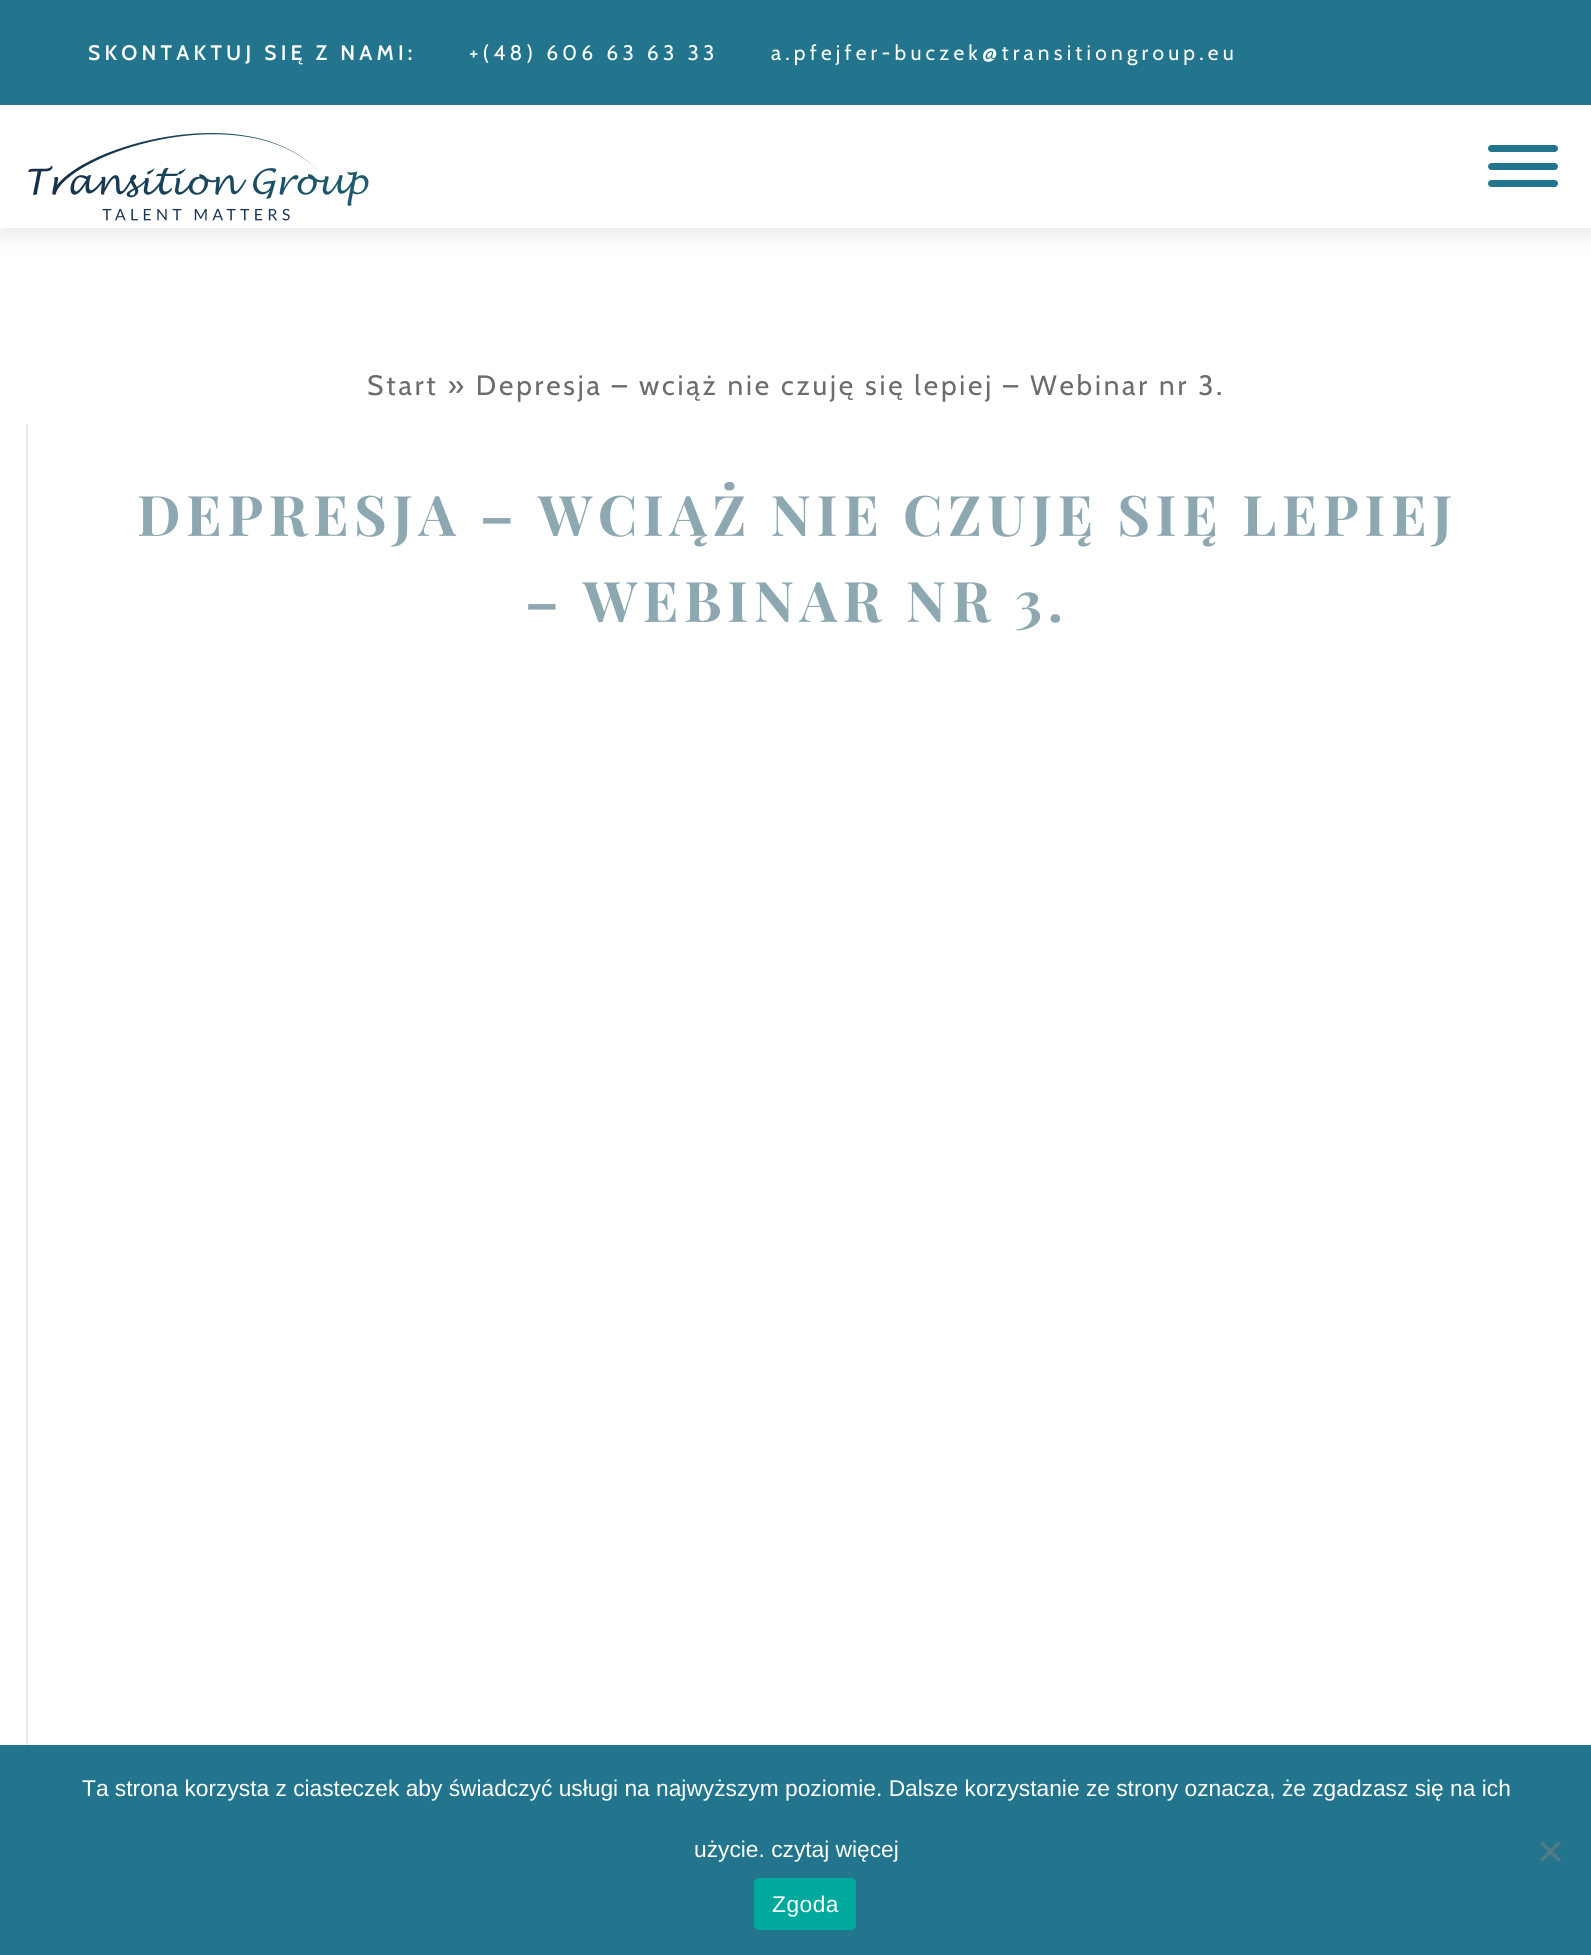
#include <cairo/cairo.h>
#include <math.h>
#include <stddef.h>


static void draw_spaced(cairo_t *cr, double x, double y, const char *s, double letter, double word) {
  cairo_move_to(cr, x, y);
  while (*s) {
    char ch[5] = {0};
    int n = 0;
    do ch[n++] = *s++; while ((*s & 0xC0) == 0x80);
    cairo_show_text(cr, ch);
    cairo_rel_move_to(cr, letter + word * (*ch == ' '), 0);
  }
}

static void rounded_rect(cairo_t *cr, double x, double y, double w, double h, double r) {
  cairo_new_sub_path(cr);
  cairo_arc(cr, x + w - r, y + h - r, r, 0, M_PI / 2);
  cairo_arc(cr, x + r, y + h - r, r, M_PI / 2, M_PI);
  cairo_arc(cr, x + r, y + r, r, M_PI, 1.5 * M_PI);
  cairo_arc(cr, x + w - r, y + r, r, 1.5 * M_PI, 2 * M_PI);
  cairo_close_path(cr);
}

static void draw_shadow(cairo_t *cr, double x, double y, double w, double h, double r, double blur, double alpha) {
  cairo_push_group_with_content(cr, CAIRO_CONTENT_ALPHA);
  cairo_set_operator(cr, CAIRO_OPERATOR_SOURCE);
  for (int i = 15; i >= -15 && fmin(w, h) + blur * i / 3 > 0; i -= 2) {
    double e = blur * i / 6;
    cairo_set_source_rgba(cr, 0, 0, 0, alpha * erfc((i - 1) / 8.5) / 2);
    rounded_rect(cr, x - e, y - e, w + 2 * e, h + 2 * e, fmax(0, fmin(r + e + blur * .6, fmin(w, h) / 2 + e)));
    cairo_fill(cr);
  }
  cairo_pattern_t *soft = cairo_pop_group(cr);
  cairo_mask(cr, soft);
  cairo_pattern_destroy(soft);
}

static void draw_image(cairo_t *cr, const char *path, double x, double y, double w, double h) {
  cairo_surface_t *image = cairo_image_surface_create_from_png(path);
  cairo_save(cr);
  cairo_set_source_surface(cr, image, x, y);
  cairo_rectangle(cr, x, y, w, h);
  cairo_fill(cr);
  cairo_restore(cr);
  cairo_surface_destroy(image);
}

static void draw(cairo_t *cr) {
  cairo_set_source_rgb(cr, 1, 1, 1);
  cairo_paint(cr);
  cairo_set_source_rgb(cr, 35 / 255.0, 116 / 255.0, 141 / 255.0);
  cairo_rectangle(cr, 0, 0, 1591, 105);
  cairo_fill(cr);
  cairo_set_source_rgb(cr, 104 / 255.0, 104 / 255.0, 104 / 255.0);
  draw_shadow(cr, 0, 114, 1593, 122, 0, 9, 0.14);
  cairo_set_source_rgb(cr, 1, 1, 1);
  cairo_rectangle(cr, 0, 105, 1591, 123);
  cairo_fill(cr);
  draw_image(cr, "images/1.png", 28, 133, 341, 88);
  cairo_set_source_rgb(cr, 35 / 255.0, 116 / 255.0, 141 / 255.0);
  rounded_rect(cr, 1488, 145, 70, 7, 3.5);
  cairo_fill(cr);
  rounded_rect(cr, 1488, 163, 70, 7, 3.5);
  cairo_fill(cr);
  rounded_rect(cr, 1488, 180, 70, 7, 3.5);
  cairo_fill(cr);
  cairo_set_source_rgb(cr, 234 / 255.0, 234 / 255.0, 234 / 255.0);
  cairo_rectangle(cr, 26, 424, 2, 1321);
  cairo_fill(cr);
  cairo_set_source_rgb(cr, 35 / 255.0, 116 / 255.0, 141 / 255.0);
  cairo_rectangle(cr, 0, 1745, 1591, 210);
  cairo_fill(cr);
  cairo_set_source_rgb(cr, 82 / 255.0, 122 / 255.0, 135 / 255.0);
  cairo_new_path(cr);
  cairo_move_to(cr, 1558.5, 1841);
  cairo_line_to(cr, 1561, 1843.5);
  cairo_line_to(cr, 1542.5, 1862);
  cairo_line_to(cr, 1540, 1859.5);
  cairo_close_path(cr);
  cairo_fill(cr);
  cairo_new_path(cr);
  cairo_move_to(cr, 1540, 1843.5);
  cairo_line_to(cr, 1542.5, 1841);
  cairo_line_to(cr, 1561, 1859.5);
  cairo_line_to(cr, 1558.5, 1862);
  cairo_close_path(cr);
  cairo_fill(cr);
  cairo_set_source_rgb(cr, 0, 169 / 255.0, 157 / 255.0);
  rounded_rect(cr, 754, 1878, 102, 52, 5);
  cairo_fill(cr);
  cairo_select_font_face(cr, "Cabin SemiBold", CAIRO_FONT_SLANT_NORMAL, CAIRO_FONT_WEIGHT_NORMAL);
  cairo_set_font_size(cr, 21);
  cairo_set_source_rgb(cr, 1, 1, 1);
  draw_spaced(cr, 88, 60, "SKONTAKTUJ SIĘ Z NAMI:", 4.2, 0);
  cairo_select_font_face(cr, "Cabin", CAIRO_FONT_SLANT_NORMAL, CAIRO_FONT_WEIGHT_NORMAL);
  draw_spaced(cr, 469, 60, "+(48) 606 63 63 33", 4.2, 0);
  draw_spaced(cr, 771, 60, "a.pfejfer-buczek@transitiongroup.eu", 4.2, 0);
  cairo_set_font_size(cr, 28);
  cairo_set_source_rgb(cr, 108 / 255.0, 108 / 255.0, 108 / 255.0);
  draw_spaced(cr, 367, 395, "Start » Depresja – wciąż nie czuję się lepiej – Webinar nr 3.", 2.8, 0);
  cairo_select_font_face(cr, "Playfair Display", CAIRO_FONT_SLANT_NORMAL, CAIRO_FONT_WEIGHT_BOLD);
  cairo_set_font_size(cr, 56);
  cairo_set_source_rgb(cr, 141 / 255.0, 168 / 255.0, 177 / 255.0);
  draw_spaced(cr, 137, 536, "DEPRESJA – WCIĄŻ NIE CZUJĘ SIĘ LEPIEJ", 5.6, 0);
  draw_spaced(cr, 525, 622, "– WEBINAR NR 3.", 5.6, 0);
  cairo_select_font_face(cr, "Liberation Sans", CAIRO_FONT_SLANT_NORMAL, CAIRO_FONT_WEIGHT_NORMAL);
  cairo_set_font_size(cr, 22.75);
  cairo_set_source_rgb(cr, 1, 1, 1);
  cairo_move_to(cr, 82, 1796);
  cairo_show_text(cr, "Ta strona korzysta z ciasteczek aby świadczyć usługi na najwyższym poziomie. Dalsze korzystanie ze strony oznacza, że zgadzasz się na ich");
  cairo_move_to(cr, 694, 1857);
  cairo_show_text(cr, "użycie. czytaj więcej");
  draw_spaced(cr, 772, 1912, "Zgoda", 0.5, 0);
}

int main(void) {
  cairo_surface_t *surface = cairo_image_surface_create(CAIRO_FORMAT_RGB24, 1591, 1955);
  cairo_t *cr = cairo_create(surface);
  cairo_font_options_t *options = cairo_font_options_create();
  cairo_font_options_set_hint_metrics(options, CAIRO_HINT_METRICS_OFF);
  cairo_font_options_set_hint_style(options, CAIRO_HINT_STYLE_NONE);
  cairo_set_font_options(cr, options);
  cairo_set_miter_limit(cr, 4);
  draw(cr);
  cairo_surface_write_to_png(surface, "out.png");
  cairo_font_options_destroy(options);
  cairo_destroy(cr);
  cairo_surface_destroy(surface);
  return 0;
}
